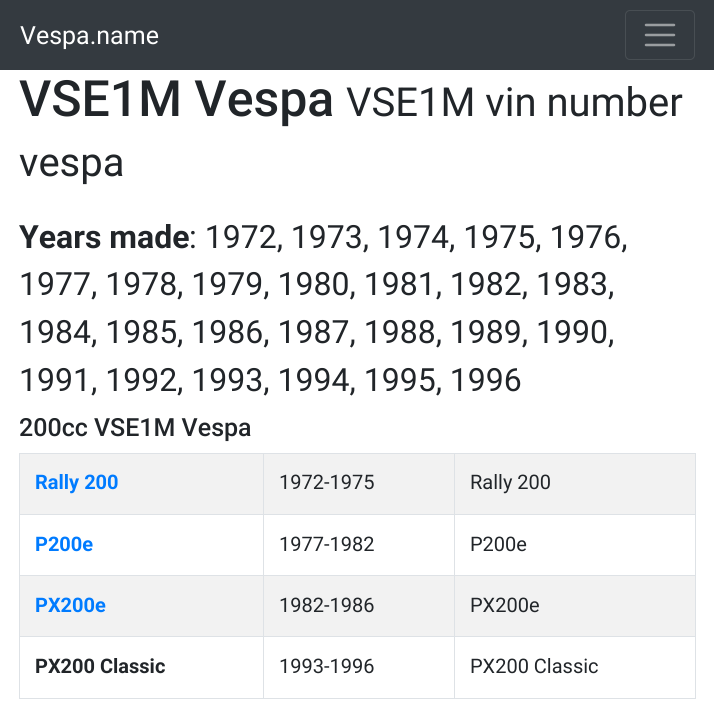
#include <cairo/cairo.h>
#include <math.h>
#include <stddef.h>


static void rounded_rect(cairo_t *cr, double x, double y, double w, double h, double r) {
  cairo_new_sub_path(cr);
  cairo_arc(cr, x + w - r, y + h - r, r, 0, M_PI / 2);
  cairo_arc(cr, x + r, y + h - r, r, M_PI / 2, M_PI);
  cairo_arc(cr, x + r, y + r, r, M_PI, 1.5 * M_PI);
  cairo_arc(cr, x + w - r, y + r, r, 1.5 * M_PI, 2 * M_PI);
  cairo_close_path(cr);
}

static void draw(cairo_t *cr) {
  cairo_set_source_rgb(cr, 1, 1, 1);
  cairo_paint(cr);
  cairo_set_source_rgb(cr, 52 / 255.0, 58 / 255.0, 64 / 255.0);
  cairo_rectangle(cr, 0, 0, 714, 70);
  cairo_fill(cr);
  rounded_rect(cr, 625.5, 10.5, 69, 49, 4.5);
  cairo_set_source_rgb(cr, 72 / 255.0, 78 / 255.0, 83 / 255.0);
  cairo_set_line_width(cr, 1);
  cairo_stroke(cr);
  cairo_new_path(cr);
  cairo_move_to(cr, 646, 25);
  cairo_line_to(cr, 674, 25);
  cairo_move_to(cr, 646, 35);
  cairo_line_to(cr, 674, 35);
  cairo_move_to(cr, 646, 45);
  cairo_line_to(cr, 674, 45);
  cairo_set_source_rgb(cr, 154 / 255.0, 157 / 255.0, 160 / 255.0);
  cairo_set_line_width(cr, 2.5);
  cairo_set_line_cap(cr, CAIRO_LINE_CAP_ROUND);
  cairo_stroke(cr);
  cairo_set_source_rgb(cr, 222 / 255.0, 226 / 255.0, 230 / 255.0);
  cairo_rectangle(cr, 19, 453, 677, 1);
  cairo_fill(cr);
  cairo_rectangle(cr, 695, 453, 1, 246);
  cairo_fill(cr);
  cairo_rectangle(cr, 19, 698, 677, 1);
  cairo_fill(cr);
  cairo_rectangle(cr, 19, 453, 1, 246);
  cairo_fill(cr);
  cairo_set_source_rgb(cr, 242 / 255.0, 242 / 255.0, 242 / 255.0);
  cairo_rectangle(cr, 20, 454, 675, 60);
  cairo_fill(cr);
  cairo_set_source_rgb(cr, 222 / 255.0, 226 / 255.0, 230 / 255.0);
  cairo_rectangle(cr, 454, 514, 242, 1);
  cairo_fill(cr);
  cairo_rectangle(cr, 454, 575, 242, 1);
  cairo_fill(cr);
  cairo_set_source_rgb(cr, 242 / 255.0, 242 / 255.0, 242 / 255.0);
  cairo_rectangle(cr, 20, 576, 675, 60);
  cairo_fill(cr);
  cairo_set_source_rgb(cr, 222 / 255.0, 226 / 255.0, 230 / 255.0);
  cairo_rectangle(cr, 454, 636, 242, 1);
  cairo_fill(cr);
  cairo_rectangle(cr, 454, 636, 1, 63);
  cairo_fill(cr);
  cairo_rectangle(cr, 263, 636, 192, 1);
  cairo_fill(cr);
  cairo_rectangle(cr, 454, 575, 1, 63);
  cairo_fill(cr);
  cairo_rectangle(cr, 263, 575, 192, 1);
  cairo_fill(cr);
  cairo_rectangle(cr, 454, 514, 1, 62);
  cairo_fill(cr);
  cairo_rectangle(cr, 263, 514, 192, 1);
  cairo_fill(cr);
  cairo_rectangle(cr, 263, 636, 1, 63);
  cairo_fill(cr);
  cairo_rectangle(cr, 19, 636, 245, 1);
  cairo_fill(cr);
  cairo_rectangle(cr, 263, 575, 1, 63);
  cairo_fill(cr);
  cairo_rectangle(cr, 19, 575, 245, 1);
  cairo_fill(cr);
  cairo_rectangle(cr, 263, 514, 1, 62);
  cairo_fill(cr);
  cairo_rectangle(cr, 19, 514, 245, 1);
  cairo_fill(cr);
  cairo_rectangle(cr, 263, 453, 1, 62);
  cairo_fill(cr);
  cairo_rectangle(cr, 454, 453, 1, 62);
  cairo_fill(cr);
  cairo_select_font_face(cr, "Roboto", CAIRO_FONT_SLANT_NORMAL, CAIRO_FONT_WEIGHT_NORMAL);
  cairo_set_font_size(cr, 25);
  cairo_set_source_rgb(cr, 1, 1, 1);
  cairo_move_to(cr, 20, 44);
  cairo_show_text(cr, "Vespa.name");
  cairo_select_font_face(cr, "Roboto Medium", CAIRO_FONT_SLANT_NORMAL, CAIRO_FONT_WEIGHT_NORMAL);
  cairo_set_font_size(cr, 50);
  cairo_set_source_rgb(cr, 33 / 255.0, 37 / 255.0, 41 / 255.0);
  cairo_move_to(cr, 19, 116);
  cairo_show_text(cr, "VSE1M Vespa");
  cairo_select_font_face(cr, "Roboto", CAIRO_FONT_SLANT_NORMAL, CAIRO_FONT_WEIGHT_NORMAL);
  cairo_set_font_size(cr, 40);
  cairo_move_to(cr, 346, 116);
  cairo_show_text(cr, "VSE1M vin number");
  cairo_move_to(cr, 19, 176);
  cairo_show_text(cr, "vespa");
  cairo_select_font_face(cr, "Roboto", CAIRO_FONT_SLANT_NORMAL, CAIRO_FONT_WEIGHT_BOLD);
  cairo_set_font_size(cr, 32);
  cairo_move_to(cr, 19, 248);
  cairo_show_text(cr, "Years made");
  cairo_select_font_face(cr, "Roboto", CAIRO_FONT_SLANT_NORMAL, CAIRO_FONT_WEIGHT_NORMAL);
  cairo_move_to(cr, 189, 248);
  cairo_show_text(cr, ": 1972, 1973, 1974, 1975, 1976,");
  cairo_move_to(cr, 19, 295);
  cairo_show_text(cr, "1977, 1978, 1979, 1980, 1981, 1982, 1983,");
  cairo_move_to(cr, 19, 343);
  cairo_show_text(cr, "1984, 1985, 1986, 1987, 1988, 1989, 1990,");
  cairo_move_to(cr, 19, 391);
  cairo_show_text(cr, "1991, 1992, 1993, 1994, 1995, 1996");
  cairo_select_font_face(cr, "Roboto Medium", CAIRO_FONT_SLANT_NORMAL, CAIRO_FONT_WEIGHT_NORMAL);
  cairo_set_font_size(cr, 25);
  cairo_move_to(cr, 19, 436);
  cairo_show_text(cr, "200cc VSE1M Vespa");
  cairo_select_font_face(cr, "Roboto", CAIRO_FONT_SLANT_NORMAL, CAIRO_FONT_WEIGHT_BOLD);
  cairo_set_font_size(cr, 20);
  cairo_set_source_rgb(cr, 0, 123 / 255.0, 1);
  cairo_move_to(cr, 35, 489);
  cairo_show_text(cr, "Rally 200");
  cairo_select_font_face(cr, "Roboto", CAIRO_FONT_SLANT_NORMAL, CAIRO_FONT_WEIGHT_NORMAL);
  cairo_set_source_rgb(cr, 33 / 255.0, 37 / 255.0, 41 / 255.0);
  cairo_move_to(cr, 279, 489);
  cairo_show_text(cr, "1972-1975");
  cairo_move_to(cr, 470, 489);
  cairo_show_text(cr, "Rally 200");
  cairo_select_font_face(cr, "Roboto", CAIRO_FONT_SLANT_NORMAL, CAIRO_FONT_WEIGHT_BOLD);
  cairo_set_source_rgb(cr, 0, 123 / 255.0, 1);
  cairo_move_to(cr, 35, 551);
  cairo_show_text(cr, "P200e");
  cairo_select_font_face(cr, "Roboto", CAIRO_FONT_SLANT_NORMAL, CAIRO_FONT_WEIGHT_NORMAL);
  cairo_set_source_rgb(cr, 33 / 255.0, 37 / 255.0, 41 / 255.0);
  cairo_move_to(cr, 279, 551);
  cairo_show_text(cr, "1977-1982");
  cairo_move_to(cr, 470, 551);
  cairo_show_text(cr, "P200e");
  cairo_select_font_face(cr, "Roboto", CAIRO_FONT_SLANT_NORMAL, CAIRO_FONT_WEIGHT_BOLD);
  cairo_set_source_rgb(cr, 0, 123 / 255.0, 1);
  cairo_move_to(cr, 35, 612);
  cairo_show_text(cr, "PX200e");
  cairo_select_font_face(cr, "Roboto", CAIRO_FONT_SLANT_NORMAL, CAIRO_FONT_WEIGHT_NORMAL);
  cairo_set_source_rgb(cr, 33 / 255.0, 37 / 255.0, 41 / 255.0);
  cairo_move_to(cr, 279, 612);
  cairo_show_text(cr, "1982-1986");
  cairo_move_to(cr, 470, 612);
  cairo_show_text(cr, "PX200e");
  cairo_select_font_face(cr, "Roboto", CAIRO_FONT_SLANT_NORMAL, CAIRO_FONT_WEIGHT_BOLD);
  cairo_move_to(cr, 35, 673);
  cairo_show_text(cr, "PX200 Classic");
  cairo_select_font_face(cr, "Roboto", CAIRO_FONT_SLANT_NORMAL, CAIRO_FONT_WEIGHT_NORMAL);
  cairo_move_to(cr, 279, 673);
  cairo_show_text(cr, "1993-1996");
  cairo_move_to(cr, 470, 673);
  cairo_show_text(cr, "PX200 Classic");
}

int main(void) {
  cairo_surface_t *surface = cairo_image_surface_create(CAIRO_FORMAT_RGB24, 714, 707);
  cairo_t *cr = cairo_create(surface);
  cairo_font_options_t *options = cairo_font_options_create();
  cairo_font_options_set_hint_metrics(options, CAIRO_HINT_METRICS_OFF);
  cairo_font_options_set_hint_style(options, CAIRO_HINT_STYLE_NONE);
  cairo_set_font_options(cr, options);
  cairo_set_miter_limit(cr, 4);
  draw(cr);
  cairo_surface_write_to_png(surface, "out.png");
  cairo_font_options_destroy(options);
  cairo_destroy(cr);
  cairo_surface_destroy(surface);
  return 0;
}
